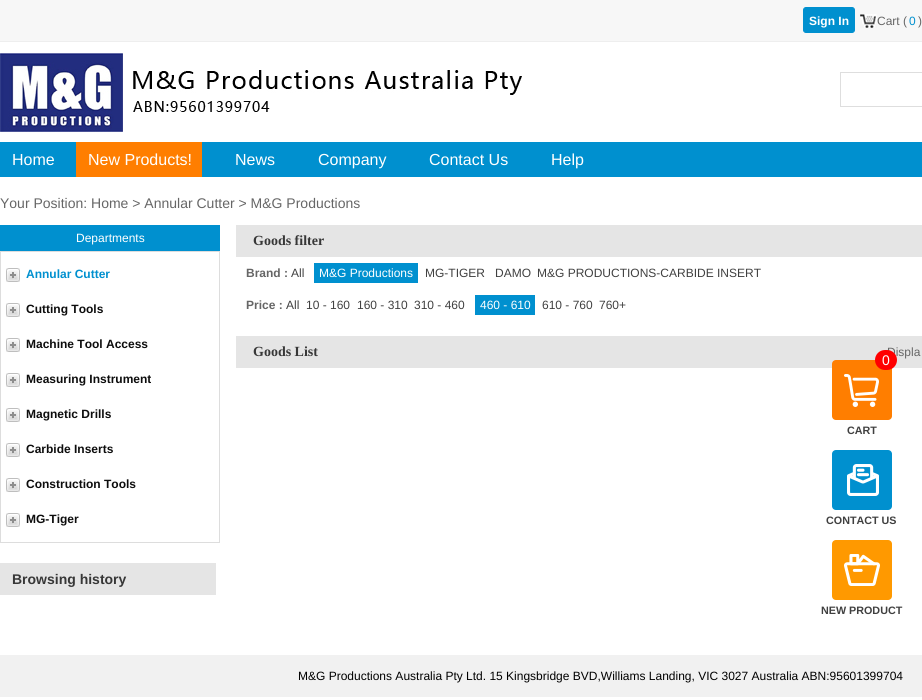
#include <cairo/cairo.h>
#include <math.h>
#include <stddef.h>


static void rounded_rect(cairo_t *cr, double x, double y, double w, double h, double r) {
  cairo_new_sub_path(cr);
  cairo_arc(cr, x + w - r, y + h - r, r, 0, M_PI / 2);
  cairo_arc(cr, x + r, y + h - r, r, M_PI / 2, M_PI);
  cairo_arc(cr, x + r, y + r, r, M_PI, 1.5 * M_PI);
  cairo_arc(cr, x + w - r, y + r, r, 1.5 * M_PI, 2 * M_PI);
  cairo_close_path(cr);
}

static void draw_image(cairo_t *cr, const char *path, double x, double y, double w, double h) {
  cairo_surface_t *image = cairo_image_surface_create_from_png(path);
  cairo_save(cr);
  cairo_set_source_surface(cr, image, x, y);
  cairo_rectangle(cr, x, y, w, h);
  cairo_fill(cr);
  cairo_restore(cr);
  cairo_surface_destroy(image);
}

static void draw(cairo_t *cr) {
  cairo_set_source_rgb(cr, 1, 1, 1);
  cairo_paint(cr);
  cairo_set_source_rgb(cr, 247 / 255.0, 247 / 255.0, 247 / 255.0);
  cairo_rectangle(cr, 0, 0, 922, 41);
  cairo_fill(cr);
  cairo_set_source_rgb(cr, 238 / 255.0, 238 / 255.0, 238 / 255.0);
  cairo_rectangle(cr, 0, 41, 922, 1);
  cairo_fill(cr);
  cairo_set_source_rgb(cr, 0, 144 / 255.0, 207 / 255.0);
  rounded_rect(cr, 803.5, 7.5, 51, 25, 2.5);
  cairo_fill_preserve(cr);
  cairo_set_line_width(cr, 1);
  cairo_stroke(cr);
  draw_image(cr, "images/1.png", 860, 14, 17, 14);
  draw_image(cr, "images/2.png", 0, 53, 123, 79);
  draw_image(cr, "images/3.png", 133, 70, 389, 42);
  cairo_rectangle(cr, 840.5, 72.5, 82, 34);
  cairo_set_source_rgb(cr, 222 / 255.0, 222 / 255.0, 222 / 255.0);
  cairo_stroke(cr);
  cairo_set_source_rgb(cr, 0, 144 / 255.0, 207 / 255.0);
  cairo_rectangle(cr, 0, 142, 922, 35);
  cairo_fill(cr);
  cairo_set_source_rgb(cr, 1, 126 / 255.0, 0);
  cairo_rectangle(cr, 76, 142, 126, 35);
  cairo_fill(cr);
  cairo_set_source_rgb(cr, 0, 144 / 255.0, 207 / 255.0);
  cairo_rectangle(cr, 0, 225, 220, 26);
  cairo_fill(cr);
  cairo_rectangle(cr, 0.5, 251.5, 219, 291);
  cairo_set_source_rgb(cr, 221 / 255.0, 221 / 255.0, 221 / 255.0);
  cairo_stroke(cr);
  draw_image(cr, "images/4.png", 6, 268, 14, 14);
  draw_image(cr, "images/4.png", 6, 303, 14, 14);
  draw_image(cr, "images/4.png", 6, 338, 14, 14);
  draw_image(cr, "images/4.png", 6, 373, 14, 14);
  draw_image(cr, "images/4.png", 6, 408, 14, 14);
  draw_image(cr, "images/4.png", 6, 443, 14, 14);
  draw_image(cr, "images/4.png", 6, 478, 14, 14);
  draw_image(cr, "images/4.png", 6, 513, 14, 14);
  cairo_set_source_rgb(cr, 229 / 255.0, 229 / 255.0, 229 / 255.0);
  cairo_rectangle(cr, 0, 563, 216, 32);
  cairo_fill(cr);
  cairo_rectangle(cr, 236, 225, 686, 32);
  cairo_fill(cr);
  cairo_set_source_rgb(cr, 0, 144 / 255.0, 207 / 255.0);
  cairo_rectangle(cr, 314, 263, 104, 20);
  cairo_fill(cr);
  cairo_rectangle(cr, 475, 295, 60, 20);
  cairo_fill(cr);
  cairo_set_source_rgb(cr, 229 / 255.0, 229 / 255.0, 229 / 255.0);
  cairo_rectangle(cr, 236, 336, 686, 32);
  cairo_fill(cr);
  draw_image(cr, "images/5.png", 832, 360, 60, 60);
  draw_image(cr, "images/6.png", 832, 450, 60, 60);
  draw_image(cr, "images/7.png", 832, 540, 60, 60);
  cairo_set_source_rgb(cr, 241 / 255.0, 241 / 255.0, 241 / 255.0);
  cairo_rectangle(cr, 0, 655, 922, 42);
  cairo_fill(cr);
  cairo_select_font_face(cr, "Liberation Sans", CAIRO_FONT_SLANT_NORMAL, CAIRO_FONT_WEIGHT_BOLD);
  cairo_set_font_size(cr, 12);
  cairo_set_source_rgb(cr, 1, 1, 1);
  cairo_move_to(cr, 809, 25);
  cairo_show_text(cr, "Sign In");
  cairo_select_font_face(cr, "Liberation Sans", CAIRO_FONT_SLANT_NORMAL, CAIRO_FONT_WEIGHT_NORMAL);
  cairo_set_source_rgb(cr, 102 / 255.0, 102 / 255.0, 102 / 255.0);
  cairo_move_to(cr, 877, 25);
  cairo_show_text(cr, "Cart (");
  cairo_set_source_rgb(cr, 0, 144 / 255.0, 207 / 255.0);
  cairo_move_to(cr, 909, 25);
  cairo_show_text(cr, "0");
  cairo_set_source_rgb(cr, 102 / 255.0, 102 / 255.0, 102 / 255.0);
  cairo_move_to(cr, 918, 25);
  cairo_show_text(cr, ")");
  cairo_set_font_size(cr, 16);
  cairo_set_source_rgb(cr, 1, 1, 1);
  cairo_move_to(cr, 12, 165);
  cairo_show_text(cr, "Home");
  cairo_move_to(cr, 88, 165);
  cairo_show_text(cr, "New Products!");
  cairo_move_to(cr, 235, 165);
  cairo_show_text(cr, "News");
  cairo_move_to(cr, 318, 165);
  cairo_show_text(cr, "Company");
  cairo_move_to(cr, 429, 165);
  cairo_show_text(cr, "Contact Us");
  cairo_move_to(cr, 551, 165);
  cairo_show_text(cr, "Help");
  cairo_set_font_size(cr, 14);
  cairo_set_source_rgb(cr, 102 / 255.0, 102 / 255.0, 102 / 255.0);
  cairo_move_to(cr, 0, 208);
  cairo_show_text(cr, "Your Position: Home > Annular Cutter > M&G Productions");
  cairo_set_font_size(cr, 12);
  cairo_set_source_rgb(cr, 1, 1, 1);
  cairo_move_to(cr, 76, 242);
  cairo_show_text(cr, "Departments");
  cairo_select_font_face(cr, "Liberation Sans", CAIRO_FONT_SLANT_NORMAL, CAIRO_FONT_WEIGHT_BOLD);
  cairo_set_source_rgb(cr, 0, 144 / 255.0, 207 / 255.0);
  cairo_move_to(cr, 26, 278);
  cairo_show_text(cr, "Annular Cutter");
  cairo_set_source_rgb(cr, 13 / 255.0, 13 / 255.0, 13 / 255.0);
  cairo_move_to(cr, 26, 313);
  cairo_show_text(cr, "Cutting Tools");
  cairo_move_to(cr, 26, 348);
  cairo_show_text(cr, "Machine Tool Access");
  cairo_move_to(cr, 26, 383);
  cairo_show_text(cr, "Measuring Instrument");
  cairo_move_to(cr, 26, 418);
  cairo_show_text(cr, "Magnetic Drills");
  cairo_move_to(cr, 26, 453);
  cairo_show_text(cr, "Carbide Inserts");
  cairo_move_to(cr, 26, 488);
  cairo_show_text(cr, "Construction Tools");
  cairo_move_to(cr, 26, 523);
  cairo_show_text(cr, "MG-Tiger");
  cairo_set_font_size(cr, 14);
  cairo_set_source_rgb(cr, 55 / 255.0, 55 / 255.0, 55 / 255.0);
  cairo_move_to(cr, 12, 584);
  cairo_show_text(cr, "Browsing history");
  cairo_select_font_face(cr, "Liberation Serif", CAIRO_FONT_SLANT_NORMAL, CAIRO_FONT_WEIGHT_BOLD);
  cairo_move_to(cr, 253, 245);
  cairo_show_text(cr, "Goods filter");
  cairo_select_font_face(cr, "Liberation Sans", CAIRO_FONT_SLANT_NORMAL, CAIRO_FONT_WEIGHT_BOLD);
  cairo_set_font_size(cr, 12);
  cairo_set_source_rgb(cr, 102 / 255.0, 102 / 255.0, 102 / 255.0);
  cairo_move_to(cr, 246, 277);
  cairo_show_text(cr, "Brand :");
  cairo_select_font_face(cr, "Liberation Sans", CAIRO_FONT_SLANT_NORMAL, CAIRO_FONT_WEIGHT_NORMAL);
  cairo_set_source_rgb(cr, 64 / 255.0, 64 / 255.0, 64 / 255.0);
  cairo_move_to(cr, 291, 277);
  cairo_show_text(cr, "All");
  cairo_set_source_rgb(cr, 1, 1, 1);
  cairo_move_to(cr, 319, 277);
  cairo_show_text(cr, "M&G Productions");
  cairo_set_source_rgb(cr, 64 / 255.0, 64 / 255.0, 64 / 255.0);
  cairo_move_to(cr, 425, 277);
  cairo_show_text(cr, "MG-TIGER");
  cairo_move_to(cr, 495, 277);
  cairo_show_text(cr, "DAMO");
  cairo_move_to(cr, 537, 277);
  cairo_show_text(cr, "M&G PRODUCTIONS-CARBIDE INSERT");
  cairo_select_font_face(cr, "Liberation Sans", CAIRO_FONT_SLANT_NORMAL, CAIRO_FONT_WEIGHT_BOLD);
  cairo_set_source_rgb(cr, 102 / 255.0, 102 / 255.0, 102 / 255.0);
  cairo_move_to(cr, 246, 309);
  cairo_show_text(cr, "Price :");
  cairo_select_font_face(cr, "Liberation Sans", CAIRO_FONT_SLANT_NORMAL, CAIRO_FONT_WEIGHT_NORMAL);
  cairo_set_source_rgb(cr, 64 / 255.0, 64 / 255.0, 64 / 255.0);
  cairo_move_to(cr, 286, 309);
  cairo_show_text(cr, "All");
  cairo_move_to(cr, 306, 309);
  cairo_show_text(cr, "10 - 160");
  cairo_move_to(cr, 357, 309);
  cairo_show_text(cr, "160 - 310");
  cairo_move_to(cr, 414, 309);
  cairo_show_text(cr, "310 - 460");
  cairo_set_source_rgb(cr, 1, 1, 1);
  cairo_move_to(cr, 480, 309);
  cairo_show_text(cr, "460 - 610");
  cairo_set_source_rgb(cr, 64 / 255.0, 64 / 255.0, 64 / 255.0);
  cairo_move_to(cr, 542, 309);
  cairo_show_text(cr, "610 - 760");
  cairo_move_to(cr, 599, 309);
  cairo_show_text(cr, "760+");
  cairo_select_font_face(cr, "Liberation Serif", CAIRO_FONT_SLANT_NORMAL, CAIRO_FONT_WEIGHT_BOLD);
  cairo_set_font_size(cr, 14);
  cairo_set_source_rgb(cr, 55 / 255.0, 55 / 255.0, 55 / 255.0);
  cairo_move_to(cr, 253, 356);
  cairo_show_text(cr, "Goods List");
  cairo_select_font_face(cr, "Liberation Sans", CAIRO_FONT_SLANT_NORMAL, CAIRO_FONT_WEIGHT_NORMAL);
  cairo_set_font_size(cr, 12);
  cairo_set_source_rgb(cr, 102 / 255.0, 102 / 255.0, 102 / 255.0);
  cairo_move_to(cr, 887, 356);
  cairo_show_text(cr, "Displa");
  cairo_set_source_rgb(cr, 1, 0, 0);
  rounded_rect(cr, 875, 350, 22, 20, 10);
  cairo_fill(cr);
  cairo_set_font_size(cr, 14);
  cairo_set_source_rgb(cr, 1, 1, 1);
  cairo_move_to(cr, 882, 365);
  cairo_show_text(cr, "0");
  cairo_select_font_face(cr, "Liberation Sans", CAIRO_FONT_SLANT_NORMAL, CAIRO_FONT_WEIGHT_BOLD);
  cairo_set_font_size(cr, 10.75);
  cairo_set_source_rgb(cr, 64 / 255.0, 64 / 255.0, 64 / 255.0);
  cairo_move_to(cr, 847, 434);
  cairo_show_text(cr, "CART");
  cairo_move_to(cr, 826, 524);
  cairo_show_text(cr, "CONTACT US");
  cairo_move_to(cr, 821, 614);
  cairo_show_text(cr, "NEW PRODUCT");
  cairo_select_font_face(cr, "Liberation Sans", CAIRO_FONT_SLANT_NORMAL, CAIRO_FONT_WEIGHT_NORMAL);
  cairo_set_font_size(cr, 12);
  cairo_set_source_rgb(cr, 0, 0, 0);
  cairo_move_to(cr, 298, 680);
  cairo_show_text(cr, "M&G Productions Australia Pty Ltd. 15 Kingsbridge BVD,Williams Landing, VIC 3027 Australia ABN:95601399704");
}

int main(void) {
  cairo_surface_t *surface = cairo_image_surface_create(CAIRO_FORMAT_RGB24, 922, 700);
  cairo_t *cr = cairo_create(surface);
  cairo_font_options_t *options = cairo_font_options_create();
  cairo_font_options_set_hint_metrics(options, CAIRO_HINT_METRICS_OFF);
  cairo_font_options_set_hint_style(options, CAIRO_HINT_STYLE_NONE);
  cairo_set_font_options(cr, options);
  cairo_set_miter_limit(cr, 4);
  draw(cr);
  cairo_surface_write_to_png(surface, "out.png");
  cairo_font_options_destroy(options);
  cairo_destroy(cr);
  cairo_surface_destroy(surface);
  return 0;
}
